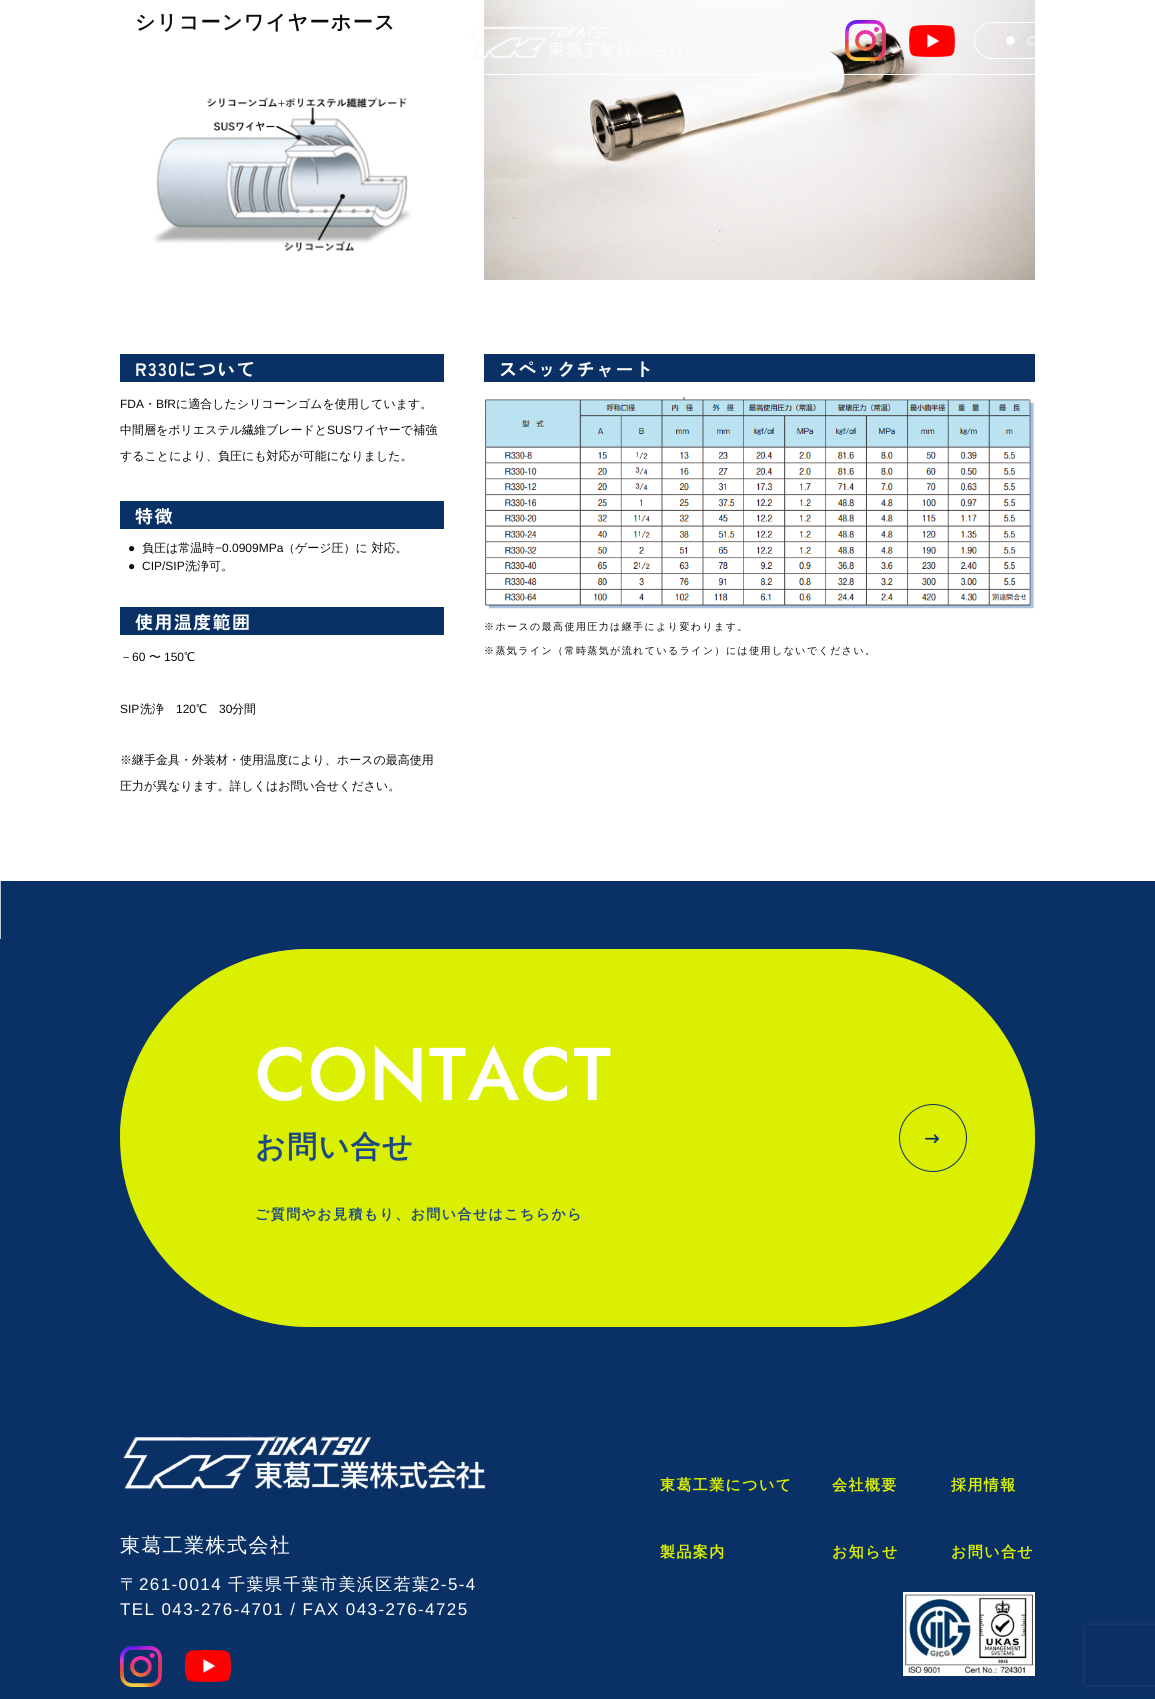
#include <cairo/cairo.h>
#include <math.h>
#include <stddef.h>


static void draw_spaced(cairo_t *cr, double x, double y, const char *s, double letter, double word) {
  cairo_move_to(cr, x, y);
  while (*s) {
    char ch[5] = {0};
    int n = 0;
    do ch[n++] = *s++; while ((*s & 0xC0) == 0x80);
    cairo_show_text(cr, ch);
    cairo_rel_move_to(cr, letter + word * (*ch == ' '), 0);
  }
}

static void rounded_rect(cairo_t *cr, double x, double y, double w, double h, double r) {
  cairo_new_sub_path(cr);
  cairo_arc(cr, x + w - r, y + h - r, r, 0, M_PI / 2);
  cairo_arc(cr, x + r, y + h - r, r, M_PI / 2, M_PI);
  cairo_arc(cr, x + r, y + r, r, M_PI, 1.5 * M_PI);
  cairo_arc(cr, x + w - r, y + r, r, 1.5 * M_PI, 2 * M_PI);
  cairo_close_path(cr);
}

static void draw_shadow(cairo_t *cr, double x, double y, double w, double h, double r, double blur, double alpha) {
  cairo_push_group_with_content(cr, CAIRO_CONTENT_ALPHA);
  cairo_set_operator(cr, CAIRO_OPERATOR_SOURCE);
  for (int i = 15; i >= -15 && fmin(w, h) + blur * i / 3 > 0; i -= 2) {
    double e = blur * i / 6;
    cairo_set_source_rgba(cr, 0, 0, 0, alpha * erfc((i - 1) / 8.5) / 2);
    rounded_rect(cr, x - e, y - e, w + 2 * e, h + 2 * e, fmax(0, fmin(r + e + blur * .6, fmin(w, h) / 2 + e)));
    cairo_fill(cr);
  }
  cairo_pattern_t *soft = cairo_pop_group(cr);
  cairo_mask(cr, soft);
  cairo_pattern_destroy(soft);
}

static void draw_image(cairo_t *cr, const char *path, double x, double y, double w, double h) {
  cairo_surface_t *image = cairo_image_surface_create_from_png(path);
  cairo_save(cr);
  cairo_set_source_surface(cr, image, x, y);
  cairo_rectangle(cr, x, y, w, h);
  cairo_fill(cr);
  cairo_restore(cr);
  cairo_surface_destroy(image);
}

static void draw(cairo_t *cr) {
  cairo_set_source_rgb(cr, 10 / 255.0, 49 / 255.0, 101 / 255.0);
  cairo_paint(cr);
  cairo_set_source_rgb(cr, 1, 1, 1);
  cairo_rectangle(cr, 0, 0, 1155, 881);
  cairo_fill(cr);
  draw_image(cr, "images/1.png", 153, 97, 258, 155);
  draw_image(cr, "images/2.png", 484, 0, 551, 280);
  cairo_set_source_rgb(cr, 10 / 255.0, 49 / 255.0, 101 / 255.0);
  cairo_rectangle(cr, 120, 354, 324, 28);
  cairo_fill(cr);
  cairo_rectangle(cr, 120, 501, 324, 28);
  cairo_fill(cr);
  cairo_rectangle(cr, 120, 607, 324, 28);
  cairo_fill(cr);
  cairo_rectangle(cr, 484, 354, 551, 28);
  cairo_fill(cr);
  draw_image(cr, "images/3.png", 485, 397, 550, 212);
  draw_image(cr, "images/4.png", 120, 949, 915, 378);
  cairo_set_source_rgb(cr, 219 / 255.0, 239 / 255.0, 0);
  rounded_rect(cr, 120, 949, 915, 378, 189);
  cairo_fill(cr);
  cairo_arc(cr, 933, 1138, 33.5, 0, 2 * M_PI);
  cairo_set_source_rgb(cr, 10 / 255.0, 49 / 255.0, 101 / 255.0);
  cairo_set_line_width(cr, 1);
  cairo_stroke(cr);
  draw_image(cr, "images/5.png", 925, 1134, 14, 10);
  cairo_set_source_rgb(cr, 1, 1, 1);
  cairo_rectangle(cr, 484, 74, 551, 1);
  cairo_fill(cr);
  draw_image(cr, "images/6.png", 470, 26, 213, 32);
  draw_image(cr, "images/7.png", 845, 20, 41, 41);
  draw_image(cr, "images/8.png", 909, 25, 46, 32);
  rounded_rect(cr, 974.5, 22.5, 150, 36, 18);
  cairo_stroke(cr);
  draw_image(cr, "images/9.png", 1006, 36, 9, 9);
  cairo_set_source_rgb(cr, 189 / 255.0, 199 / 255.0, 213 / 255.0);
  cairo_rectangle(cr, 0, 881, 1, 58);
  cairo_fill(cr);
  cairo_save(cr);
  cairo_set_fill_rule(cr, CAIRO_FILL_RULE_EVEN_ODD);
  cairo_new_path(cr);
  cairo_move_to(cr, 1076, 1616);
  cairo_line_to(cr, 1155, 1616);
  cairo_line_to(cr, 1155, 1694);
  cairo_line_to(cr, 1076, 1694);
  cairo_close_path(cr);
  cairo_move_to(cr, 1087, 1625);
  cairo_line_to(cr, 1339, 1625);
  cairo_curve_to(cr, 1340, 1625, 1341, 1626, 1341, 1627);
  cairo_line_to(cr, 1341, 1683);
  cairo_curve_to(cr, 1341, 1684, 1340, 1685, 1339, 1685);
  cairo_line_to(cr, 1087, 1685);
  cairo_curve_to(cr, 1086, 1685, 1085, 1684, 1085, 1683);
  cairo_line_to(cr, 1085, 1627);
  cairo_curve_to(cr, 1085, 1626, 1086, 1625, 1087, 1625);
  cairo_close_path(cr);
  cairo_clip(cr);
  cairo_set_source_rgb(cr, 128 / 255.0, 128 / 255.0, 128 / 255.0);
  draw_shadow(cr, 1085, 1625, 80, 60, 2, 2.5, 1);
  cairo_restore(cr);
  cairo_set_source_rgba(cr, 10 / 255.0, 49 / 255.0, 101 / 255.0, 0.75);
  cairo_rectangle(cr, 1080, 1620, 75, 70);
  cairo_fill(cr);
  draw_image(cr, "images/10.png", 903, 1592, 132, 84);
  draw_image(cr, "images/11.png", 123, 1436, 363, 53);
  draw_image(cr, "images/12.png", 120, 1646, 42, 41);
  draw_image(cr, "images/13.png", 185, 1650, 46, 32);
  cairo_select_font_face(cr, "WenQuanYi Zen Hei", CAIRO_FONT_SLANT_NORMAL, CAIRO_FONT_WEIGHT_BOLD);
  cairo_set_font_size(cr, 20);
  cairo_set_source_rgb(cr, 11 / 255.0, 11 / 255.0, 11 / 255.0);
  draw_spaced(cr, 135, 29, "シリコーンワイヤーホース", 1.4, 0);
  cairo_select_font_face(cr, "Zen Kaku Gothic Antique", CAIRO_FONT_SLANT_NORMAL, CAIRO_FONT_WEIGHT_BOLD);
  cairo_set_font_size(cr, 18);
  cairo_set_source_rgb(cr, 1, 1, 1);
  draw_spaced(cr, 135, 376, "R330について", 1.4, 0);
  cairo_select_font_face(cr, "Liberation Sans", CAIRO_FONT_SLANT_NORMAL, CAIRO_FONT_WEIGHT_NORMAL);
  cairo_set_font_size(cr, 12);
  cairo_set_source_rgb(cr, 11 / 255.0, 11 / 255.0, 11 / 255.0);
  cairo_move_to(cr, 120, 408);
  cairo_show_text(cr, "FDA");
  cairo_select_font_face(cr, "WenQuanYi Zen Hei Medium", CAIRO_FONT_SLANT_NORMAL, CAIRO_FONT_WEIGHT_NORMAL);
  cairo_move_to(cr, 144, 408);
  cairo_show_text(cr, "・");
  cairo_select_font_face(cr, "Liberation Sans", CAIRO_FONT_SLANT_NORMAL, CAIRO_FONT_WEIGHT_NORMAL);
  cairo_move_to(cr, 156, 408);
  cairo_show_text(cr, "BfR");
  cairo_select_font_face(cr, "WenQuanYi Zen Hei Medium", CAIRO_FONT_SLANT_NORMAL, CAIRO_FONT_WEIGHT_NORMAL);
  cairo_move_to(cr, 176, 408);
  cairo_show_text(cr, "に適合したシリコーンゴムを使用しています。");
  cairo_move_to(cr, 120, 434);
  cairo_show_text(cr, "中間層をポリエステル繊維ブレードと");
  cairo_select_font_face(cr, "Liberation Sans", CAIRO_FONT_SLANT_NORMAL, CAIRO_FONT_WEIGHT_NORMAL);
  cairo_move_to(cr, 327, 434);
  cairo_show_text(cr, "SUS");
  cairo_select_font_face(cr, "WenQuanYi Zen Hei Medium", CAIRO_FONT_SLANT_NORMAL, CAIRO_FONT_WEIGHT_NORMAL);
  cairo_move_to(cr, 352, 434);
  cairo_show_text(cr, "ワイヤーで補強");
  cairo_move_to(cr, 120, 460);
  cairo_show_text(cr, "することにより、負圧にも対応が可能になりました。");
  cairo_select_font_face(cr, "Zen Kaku Gothic Antique", CAIRO_FONT_SLANT_NORMAL, CAIRO_FONT_WEIGHT_BOLD);
  cairo_set_font_size(cr, 18);
  cairo_set_source_rgb(cr, 1, 1, 1);
  draw_spaced(cr, 135, 523, "特徴", 1.4, 0);
  cairo_select_font_face(cr, "Liberation Sans", CAIRO_FONT_SLANT_NORMAL, CAIRO_FONT_WEIGHT_NORMAL);
  cairo_set_font_size(cr, 12);
  cairo_set_source_rgb(cr, 11 / 255.0, 11 / 255.0, 11 / 255.0);
  cairo_move_to(cr, 128, 552);
  cairo_show_text(cr, "●");
  cairo_select_font_face(cr, "WenQuanYi Zen Hei Medium", CAIRO_FONT_SLANT_NORMAL, CAIRO_FONT_WEIGHT_NORMAL);
  cairo_move_to(cr, 142, 552);
  cairo_show_text(cr, "負圧は常温時");
  cairo_select_font_face(cr, "Liberation Sans", CAIRO_FONT_SLANT_NORMAL, CAIRO_FONT_WEIGHT_NORMAL);
  cairo_move_to(cr, 215, 552);
  cairo_show_text(cr, "−0.0909MPa");
  cairo_select_font_face(cr, "WenQuanYi Zen Hei Medium", CAIRO_FONT_SLANT_NORMAL, CAIRO_FONT_WEIGHT_NORMAL);
  cairo_move_to(cr, 283, 552);
  cairo_show_text(cr, "（ゲージ圧）に 対応。");
  cairo_select_font_face(cr, "Liberation Sans", CAIRO_FONT_SLANT_NORMAL, CAIRO_FONT_WEIGHT_NORMAL);
  cairo_move_to(cr, 128, 570);
  cairo_show_text(cr, "●");
  cairo_move_to(cr, 142, 570);
  cairo_show_text(cr, "CIP/SIP");
  cairo_select_font_face(cr, "WenQuanYi Zen Hei Medium", CAIRO_FONT_SLANT_NORMAL, CAIRO_FONT_WEIGHT_NORMAL);
  cairo_move_to(cr, 185, 570);
  cairo_show_text(cr, "洗浄可。");
  cairo_select_font_face(cr, "Zen Kaku Gothic Antique", CAIRO_FONT_SLANT_NORMAL, CAIRO_FONT_WEIGHT_BOLD);
  cairo_set_font_size(cr, 18);
  cairo_set_source_rgb(cr, 1, 1, 1);
  draw_spaced(cr, 135, 629, "使用温度範囲", 1.4, 0);
  cairo_select_font_face(cr, "WenQuanYi Zen Hei Medium", CAIRO_FONT_SLANT_NORMAL, CAIRO_FONT_WEIGHT_NORMAL);
  cairo_set_font_size(cr, 12);
  cairo_set_source_rgb(cr, 11 / 255.0, 11 / 255.0, 11 / 255.0);
  cairo_move_to(cr, 120, 661);
  cairo_show_text(cr, "－");
  cairo_select_font_face(cr, "Liberation Sans", CAIRO_FONT_SLANT_NORMAL, CAIRO_FONT_WEIGHT_NORMAL);
  cairo_move_to(cr, 132, 661);
  cairo_show_text(cr, "60");
  cairo_select_font_face(cr, "WenQuanYi Zen Hei Medium", CAIRO_FONT_SLANT_NORMAL, CAIRO_FONT_WEIGHT_NORMAL);
  cairo_move_to(cr, 149, 661);
  cairo_show_text(cr, "〜");
  cairo_select_font_face(cr, "Liberation Sans", CAIRO_FONT_SLANT_NORMAL, CAIRO_FONT_WEIGHT_NORMAL);
  cairo_move_to(cr, 164, 661);
  cairo_show_text(cr, "150");
  cairo_select_font_face(cr, "WenQuanYi Zen Hei Medium", CAIRO_FONT_SLANT_NORMAL, CAIRO_FONT_WEIGHT_NORMAL);
  cairo_move_to(cr, 184, 661);
  cairo_show_text(cr, "℃");
  cairo_select_font_face(cr, "Liberation Sans", CAIRO_FONT_SLANT_NORMAL, CAIRO_FONT_WEIGHT_NORMAL);
  cairo_move_to(cr, 120, 713);
  cairo_show_text(cr, "SIP");
  cairo_select_font_face(cr, "WenQuanYi Zen Hei Medium", CAIRO_FONT_SLANT_NORMAL, CAIRO_FONT_WEIGHT_NORMAL);
  cairo_move_to(cr, 140, 713);
  cairo_show_text(cr, "洗浄");
  cairo_select_font_face(cr, "Liberation Sans", CAIRO_FONT_SLANT_NORMAL, CAIRO_FONT_WEIGHT_NORMAL);
  cairo_move_to(cr, 176, 713);
  cairo_show_text(cr, "120");
  cairo_select_font_face(cr, "WenQuanYi Zen Hei Medium", CAIRO_FONT_SLANT_NORMAL, CAIRO_FONT_WEIGHT_NORMAL);
  cairo_move_to(cr, 196, 713);
  cairo_show_text(cr, "℃");
  cairo_select_font_face(cr, "Liberation Sans", CAIRO_FONT_SLANT_NORMAL, CAIRO_FONT_WEIGHT_NORMAL);
  cairo_move_to(cr, 219, 713);
  cairo_show_text(cr, "30");
  cairo_select_font_face(cr, "WenQuanYi Zen Hei Medium", CAIRO_FONT_SLANT_NORMAL, CAIRO_FONT_WEIGHT_NORMAL);
  cairo_move_to(cr, 232, 713);
  cairo_show_text(cr, "分間");
  cairo_move_to(cr, 120, 764);
  cairo_show_text(cr, "※継手金具・外装材・使用温度により、ホースの最高使用");
  cairo_move_to(cr, 120, 790);
  cairo_show_text(cr, "圧力が異なります。詳しくはお問い合せください。");
  cairo_select_font_face(cr, "Zen Kaku Gothic Antique", CAIRO_FONT_SLANT_NORMAL, CAIRO_FONT_WEIGHT_BOLD);
  cairo_set_font_size(cr, 18);
  cairo_set_source_rgb(cr, 1, 1, 1);
  draw_spaced(cr, 499, 376, "スペックチャート", 1.4, 0);
  cairo_select_font_face(cr, "WenQuanYi Zen Hei Medium", CAIRO_FONT_SLANT_NORMAL, CAIRO_FONT_WEIGHT_NORMAL);
  cairo_set_font_size(cr, 10);
  cairo_set_source_rgb(cr, 11 / 255.0, 11 / 255.0, 11 / 255.0);
  draw_spaced(cr, 484, 630, "※ホースの最高使用圧力は継手により変わります。", 1.4, 0);
  draw_spaced(cr, 484, 654, "※蒸気ライン（常時蒸気が流れているライン）には使用しないでください。", 1.4, 0);
  cairo_select_font_face(cr, "Jost Medium", CAIRO_FONT_SLANT_NORMAL, CAIRO_FONT_WEIGHT_NORMAL);
  cairo_set_font_size(cr, 74.5);
  cairo_set_source_rgb(cr, 1, 1, 1);
  draw_spaced(cr, 255, 1100, "CONTACT", 1.4, 0);
  cairo_select_font_face(cr, "WenQuanYi Zen Hei", CAIRO_FONT_SLANT_NORMAL, CAIRO_FONT_WEIGHT_BOLD);
  cairo_set_font_size(cr, 30);
  cairo_set_source_rgb(cr, 27 / 255.0, 73 / 255.0, 134 / 255.0);
  draw_spaced(cr, 255, 1157, "お問い合せ", 1.4, 0);
  cairo_set_font_size(cr, 14);
  draw_spaced(cr, 255, 1219, "ご質問やお見積もり、お問い合せはこちらから", 1.4, 0);
  cairo_select_font_face(cr, "Montserrat", CAIRO_FONT_SLANT_NORMAL, CAIRO_FONT_WEIGHT_NORMAL);
  cairo_set_font_size(cr, 12);
  cairo_set_source_rgb(cr, 1, 1, 1);
  draw_spaced(cr, 1027, 45, "C", 1.4, 0);
  cairo_select_font_face(cr, "WenQuanYi Zen Hei", CAIRO_FONT_SLANT_NORMAL, CAIRO_FONT_WEIGHT_BOLD);
  cairo_set_font_size(cr, 15);
  cairo_set_source_rgb(cr, 219 / 255.0, 239 / 255.0, 0);
  draw_spaced(cr, 660, 1490, "東葛工業について", 1.4, 0);
  draw_spaced(cr, 832, 1490, "会社概要", 1.4, 0);
  draw_spaced(cr, 951, 1490, "採用情報", 1.4, 0);
  draw_spaced(cr, 660, 1557, "製品案内", 1.4, 0);
  draw_spaced(cr, 832, 1557, "お知らせ", 1.4, 0);
  draw_spaced(cr, 951, 1557, "お問い合せ", 1.4, 0);
  cairo_select_font_face(cr, "WenQuanYi Zen Hei Medium", CAIRO_FONT_SLANT_NORMAL, CAIRO_FONT_WEIGHT_NORMAL);
  cairo_set_font_size(cr, 20);
  cairo_set_source_rgb(cr, 1, 1, 1);
  draw_spaced(cr, 120, 1552, "東葛工業株式会社", 1.4, 0);
  cairo_set_font_size(cr, 17);
  draw_spaced(cr, 120, 1590, "〒", 1.4, 0);
  cairo_select_font_face(cr, "Liberation Sans", CAIRO_FONT_SLANT_NORMAL, CAIRO_FONT_WEIGHT_NORMAL);
  draw_spaced(cr, 139, 1590, "261-0014", 1.4, 0);
  cairo_select_font_face(cr, "WenQuanYi Zen Hei Medium", CAIRO_FONT_SLANT_NORMAL, CAIRO_FONT_WEIGHT_NORMAL);
  draw_spaced(cr, 228, 1590, "千葉県千葉市美浜区若葉", 1.4, 0);
  cairo_select_font_face(cr, "Liberation Sans", CAIRO_FONT_SLANT_NORMAL, CAIRO_FONT_WEIGHT_NORMAL);
  draw_spaced(cr, 430, 1590, "2-5-4", 1.4, 0);
  draw_spaced(cr, 120, 1615, "TEL 043-276-4701 / FAX 043-276-4725", 1.4, 0);
}

int main(void) {
  cairo_surface_t *surface = cairo_image_surface_create(CAIRO_FORMAT_RGB24, 1155, 1699);
  cairo_t *cr = cairo_create(surface);
  cairo_font_options_t *options = cairo_font_options_create();
  cairo_font_options_set_hint_metrics(options, CAIRO_HINT_METRICS_OFF);
  cairo_font_options_set_hint_style(options, CAIRO_HINT_STYLE_NONE);
  cairo_set_font_options(cr, options);
  cairo_set_miter_limit(cr, 4);
  draw(cr);
  cairo_surface_write_to_png(surface, "out.png");
  cairo_font_options_destroy(options);
  cairo_destroy(cr);
  cairo_surface_destroy(surface);
  return 0;
}
